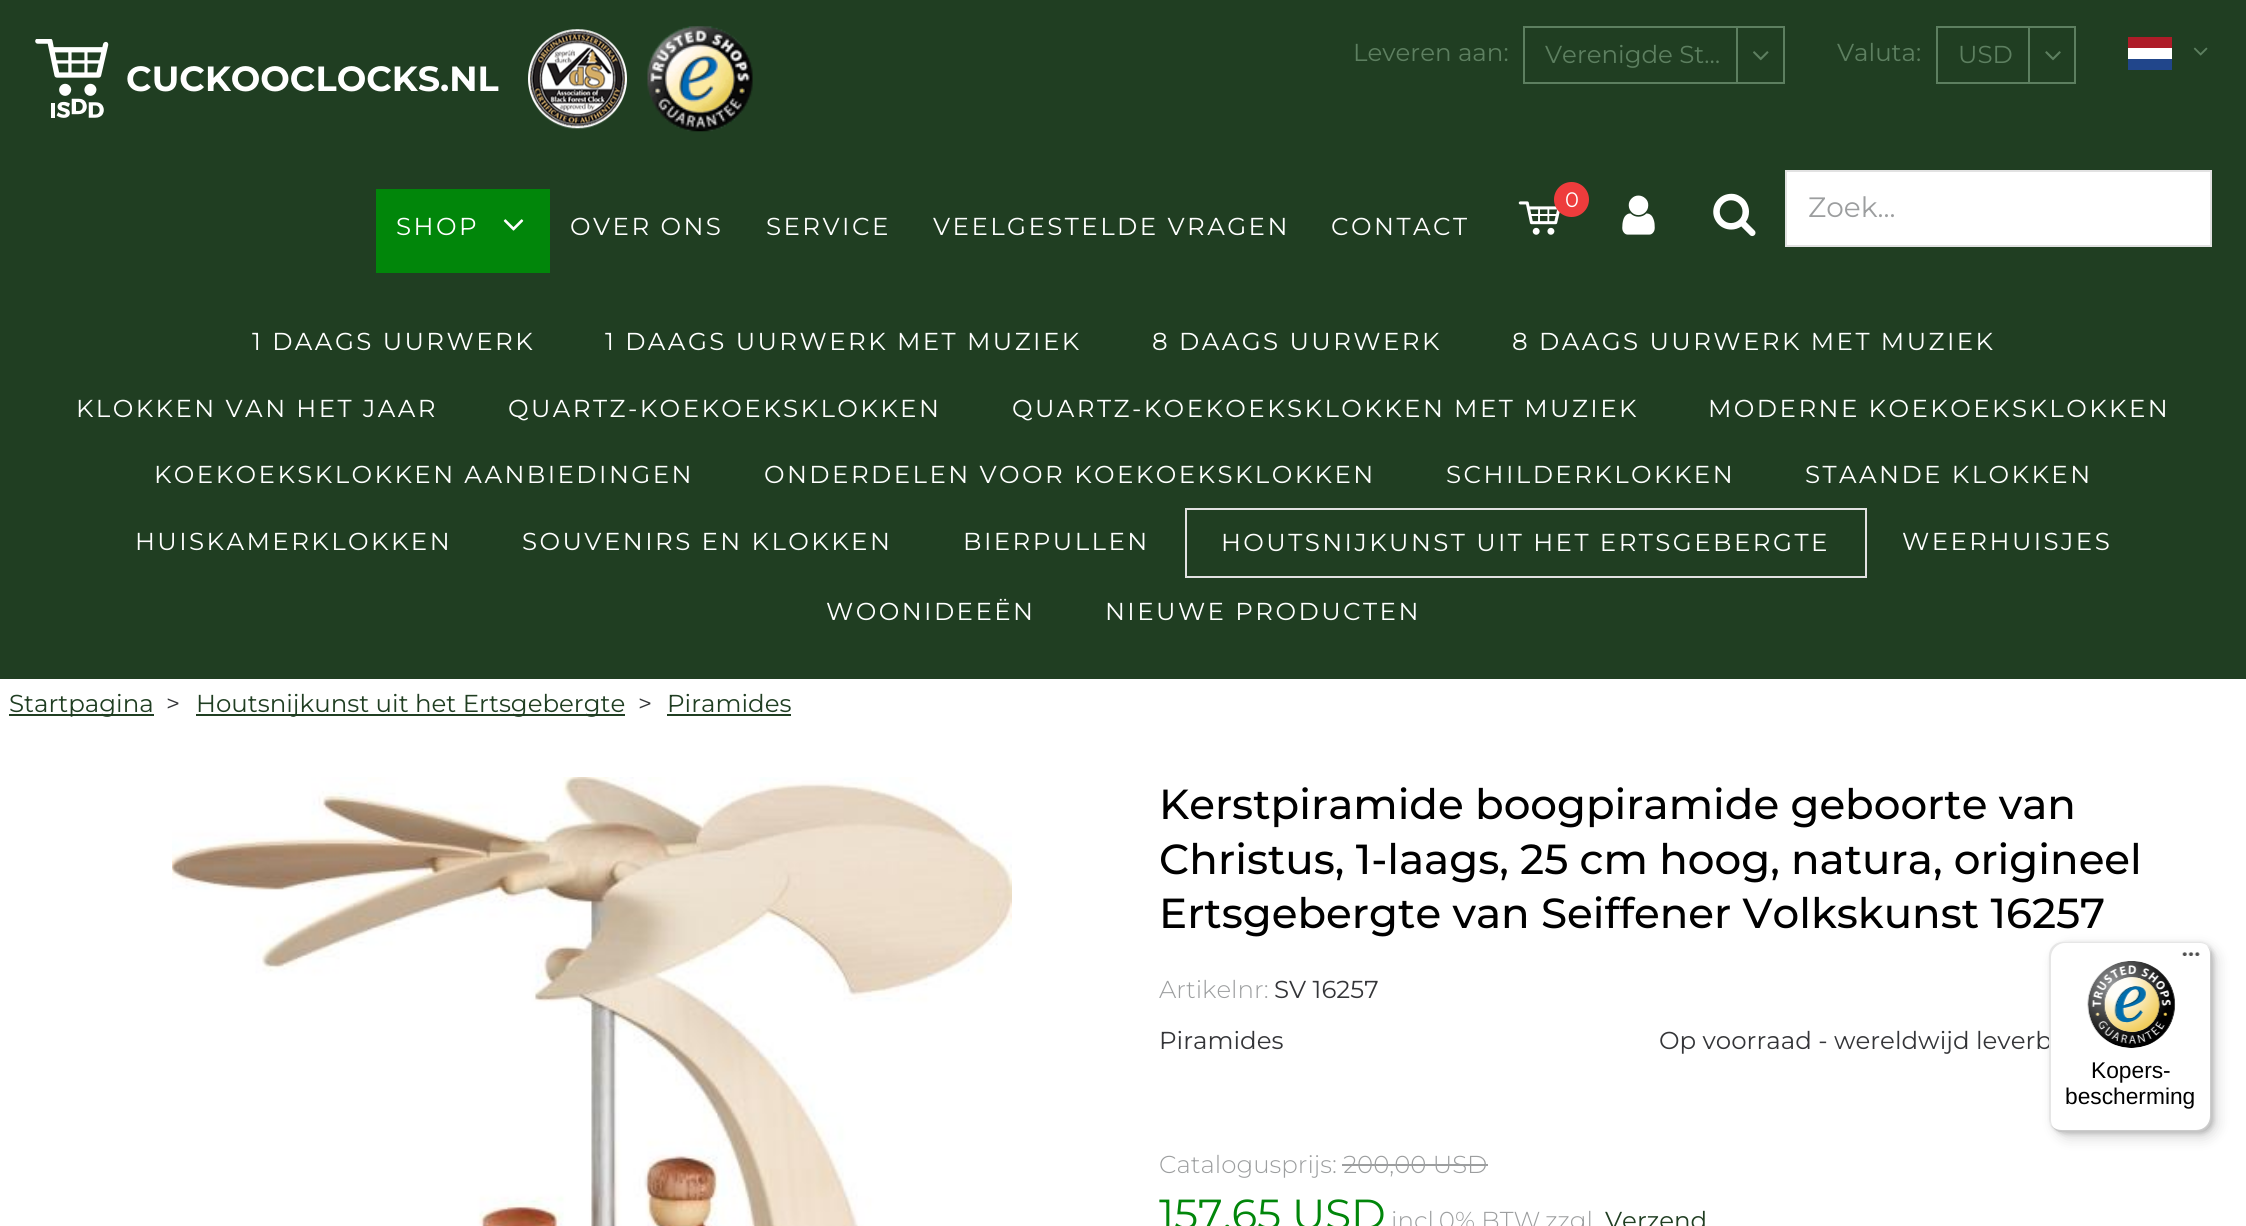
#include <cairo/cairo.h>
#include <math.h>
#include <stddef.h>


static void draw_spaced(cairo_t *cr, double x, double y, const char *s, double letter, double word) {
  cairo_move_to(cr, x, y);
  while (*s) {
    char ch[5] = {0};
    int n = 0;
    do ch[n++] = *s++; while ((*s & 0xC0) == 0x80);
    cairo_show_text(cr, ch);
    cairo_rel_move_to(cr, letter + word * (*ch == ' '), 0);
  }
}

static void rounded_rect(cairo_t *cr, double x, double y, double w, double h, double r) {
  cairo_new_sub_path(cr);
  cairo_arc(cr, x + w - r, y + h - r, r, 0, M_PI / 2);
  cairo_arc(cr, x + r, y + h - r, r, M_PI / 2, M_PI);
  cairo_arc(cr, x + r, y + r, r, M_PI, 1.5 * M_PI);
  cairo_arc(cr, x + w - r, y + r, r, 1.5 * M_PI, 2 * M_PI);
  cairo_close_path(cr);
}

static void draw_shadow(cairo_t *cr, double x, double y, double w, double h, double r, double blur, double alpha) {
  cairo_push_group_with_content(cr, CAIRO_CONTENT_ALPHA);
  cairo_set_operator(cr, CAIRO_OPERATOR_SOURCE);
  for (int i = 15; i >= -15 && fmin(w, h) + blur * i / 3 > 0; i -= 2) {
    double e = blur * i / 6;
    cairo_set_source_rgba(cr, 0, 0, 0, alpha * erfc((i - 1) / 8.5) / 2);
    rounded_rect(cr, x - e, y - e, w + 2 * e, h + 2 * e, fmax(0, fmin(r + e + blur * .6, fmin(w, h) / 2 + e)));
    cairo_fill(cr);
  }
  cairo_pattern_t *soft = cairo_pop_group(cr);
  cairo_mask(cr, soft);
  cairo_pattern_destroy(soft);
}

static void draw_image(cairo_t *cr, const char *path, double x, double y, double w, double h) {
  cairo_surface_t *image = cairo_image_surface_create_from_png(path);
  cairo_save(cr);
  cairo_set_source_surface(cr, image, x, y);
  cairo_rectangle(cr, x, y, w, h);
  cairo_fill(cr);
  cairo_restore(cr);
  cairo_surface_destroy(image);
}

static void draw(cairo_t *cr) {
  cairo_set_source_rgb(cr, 1, 1, 1);
  cairo_paint(cr);
  cairo_set_source_rgb(cr, 32 / 255.0, 62 / 255.0, 34 / 255.0);
  cairo_rectangle(cr, 0, 0, 2246, 679);
  cairo_fill(cr);
  cairo_rectangle(cr, 1524, 27, 260, 56);
  cairo_set_source_rgb(cr, 93 / 255.0, 127 / 255.0, 96 / 255.0);
  cairo_stroke(cr);
  cairo_rectangle(cr, 1736, 28, 2, 54);
  cairo_fill(cr);
  draw_image(cr, "images/1.png", 1753, 51, 16, 10);
  cairo_rectangle(cr, 1937, 27, 138, 56);
  cairo_stroke(cr);
  cairo_rectangle(cr, 2028, 28, 2, 54);
  cairo_fill(cr);
  draw_image(cr, "images/2.png", 2045, 51, 16, 10);
  cairo_set_source_rgb(cr, 174 / 255.0, 28 / 255.0, 40 / 255.0);
  cairo_rectangle(cr, 2128, 37, 44, 11);
  cairo_fill(cr);
  cairo_set_source_rgb(cr, 1, 1, 1);
  cairo_rectangle(cr, 2128, 48, 44, 11);
  cairo_fill(cr);
  draw_image(cr, "images/3.png", 2193, 47, 15, 9);
  cairo_set_source_rgb(cr, 33 / 255.0, 70 / 255.0, 139 / 255.0);
  cairo_rectangle(cr, 2128, 59, 44, 11);
  cairo_fill(cr);
  draw_image(cr, "images/4.png", 35, 39, 74, 79);
  draw_image(cr, "images/5.png", 528, 29, 99, 100);
  draw_image(cr, "images/6.png", 647, 26, 106, 106);
  draw_image(cr, "images/7.png", 1518, 201, 42, 34);
  cairo_set_source_rgb(cr, 238 / 255.0, 60 / 255.0, 60 / 255.0);
  cairo_arc(cr, 1571.5, 199.5, 17.5, 0, 2 * M_PI);
  cairo_fill(cr);
  draw_image(cr, "images/8.png", 1622, 195, 33, 40);
  draw_image(cr, "images/9.png", 1713, 193, 43, 44);
  cairo_set_source_rgb(cr, 1, 1, 1);
  cairo_rectangle(cr, 1786, 171, 425, 75);
  cairo_fill_preserve(cr);
  cairo_set_source_rgb(cr, 226 / 255.0, 226 / 255.0, 226 / 255.0);
  cairo_stroke(cr);
  cairo_set_source_rgb(cr, 1 / 255.0, 134 / 255.0, 10 / 255.0);
  cairo_rectangle(cr, 376, 189, 174, 84);
  cairo_fill(cr);
  draw_image(cr, "images/10.png", 503, 219, 21, 12);
  cairo_rectangle(cr, 1186, 509, 680, 68);
  cairo_set_source_rgb(cr, 226 / 255.0, 226 / 255.0, 226 / 255.0);
  cairo_stroke(cr);
  cairo_set_source_rgb(cr, 32 / 255.0, 62 / 255.0, 34 / 255.0);
  cairo_rectangle(cr, 9, 714, 145, 2);
  cairo_fill(cr);
  cairo_rectangle(cr, 196, 714, 429, 2);
  cairo_fill(cr);
  cairo_rectangle(cr, 667, 714, 124, 2);
  cairo_fill(cr);
  draw_image(cr, "images/11.png", 172, 777, 840, 449);
  cairo_set_source_rgb(cr, 156 / 255.0, 158 / 255.0, 159 / 255.0);
  cairo_rectangle(cr, 1342, 1164, 146, 2);
  cairo_fill(cr);
  cairo_set_source_rgb(cr, 0, 0, 0);
  draw_shadow(cr, 2055, 947, 162, 191, 14, 7, 0.15);
  draw_shadow(cr, 2051, 943, 163, 191, 14, 2, 0.15);
  cairo_select_font_face(cr, "Montserrat Thin", CAIRO_FONT_SLANT_NORMAL, CAIRO_FONT_WEIGHT_NORMAL);
  cairo_set_font_size(cr, 24.5);
  cairo_set_source_rgb(cr, 93 / 255.0, 127 / 255.0, 96 / 255.0);
  cairo_move_to(cr, 1353, 61);
  cairo_show_text(cr, "Leveren aan:");
  cairo_move_to(cr, 1545, 63);
  cairo_show_text(cr, "Verenigde St…");
  cairo_move_to(cr, 1837, 61);
  cairo_show_text(cr, "Valuta:");
  cairo_move_to(cr, 1958, 63);
  cairo_show_text(cr, "USD");
  cairo_select_font_face(cr, "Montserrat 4 Thin", CAIRO_FONT_SLANT_NORMAL, CAIRO_FONT_WEIGHT_NORMAL);
  cairo_set_font_size(cr, 35);
  cairo_set_source_rgb(cr, 1, 1, 1);
  cairo_move_to(cr, 126, 91);
  cairo_show_text(cr, "CUCKOOCLOCKS.NL");
  cairo_select_font_face(cr, "Montserrat Thin", CAIRO_FONT_SLANT_NORMAL, CAIRO_FONT_WEIGHT_NORMAL);
  cairo_set_font_size(cr, 21);
  cairo_move_to(cr, 1565, 207);
  cairo_show_text(cr, "0");
  cairo_set_font_size(cr, 28);
  cairo_set_source_rgb(cr, 156 / 255.0, 158 / 255.0, 159 / 255.0);
  cairo_move_to(cr, 1808, 217);
  cairo_show_text(cr, "Zoek...");
  cairo_set_font_size(cr, 24.5);
  cairo_set_source_rgb(cr, 1, 1, 1);
  draw_spaced(cr, 396, 235, "SHOP", 2.45, 0);
  draw_spaced(cr, 570, 235, "OVER ONS", 2.45, 0);
  draw_spaced(cr, 766, 235, "SERVICE", 2.45, 0);
  draw_spaced(cr, 933, 235, "VEELGESTELDE VRAGEN", 2.45, 0);
  draw_spaced(cr, 1331, 235, "CONTACT", 2.45, 0);
  draw_spaced(cr, 252, 350, "1 DAAGS UURWERK", 2.45, 0);
  draw_spaced(cr, 605, 350, "1 DAAGS UURWERK MET MUZIEK", 2.45, 0);
  draw_spaced(cr, 1152, 350, "8 DAAGS UURWERK", 2.45, 0);
  draw_spaced(cr, 1512, 350, "8 DAAGS UURWERK MET MUZIEK", 2.45, 0);
  draw_spaced(cr, 76, 417, "KLOKKEN VAN HET JAAR", 2.45, 0);
  draw_spaced(cr, 508, 417, "QUARTZ-KOEKOEKSKLOKKEN", 2.45, 0);
  draw_spaced(cr, 1012, 417, "QUARTZ-KOEKOEKSKLOKKEN MET MUZIEK", 2.45, 0);
  draw_spaced(cr, 1708, 417, "MODERNE KOEKOEKSKLOKKEN", 2.45, 0);
  draw_spaced(cr, 154, 483, "KOEKOEKSKLOKKEN AANBIEDINGEN", 2.45, 0);
  draw_spaced(cr, 764, 483, "ONDERDELEN VOOR KOEKOEKSKLOKKEN", 2.45, 0);
  draw_spaced(cr, 1446, 483, "SCHILDERKLOKKEN", 2.45, 0);
  draw_spaced(cr, 1805, 483, "STAANDE KLOKKEN", 2.45, 0);
  draw_spaced(cr, 135, 550, "HUISKAMERKLOKKEN", 2.45, 0);
  draw_spaced(cr, 522, 550, "SOUVENIRS EN KLOKKEN", 2.45, 0);
  draw_spaced(cr, 963, 550, "BIERPULLEN", 2.45, 0);
  draw_spaced(cr, 1221, 551, "HOUTSNIJKUNST UIT HET ERTSGEBERGTE", 2.45, 0);
  draw_spaced(cr, 1902, 550, "WEERHUISJES", 2.45, 0);
  draw_spaced(cr, 826, 620, "WOONIDEEËN", 2.45, 0);
  draw_spaced(cr, 1105, 620, "NIEUWE PRODUCTEN", 2.45, 0);
  cairo_set_source_rgb(cr, 32 / 255.0, 62 / 255.0, 34 / 255.0);
  cairo_move_to(cr, 9, 712);
  cairo_show_text(cr, "Startpagina");
  cairo_set_source_rgb(cr, 52 / 255.0, 53 / 255.0, 56 / 255.0);
  cairo_move_to(cr, 166, 712);
  cairo_show_text(cr, ">");
  cairo_set_source_rgb(cr, 32 / 255.0, 62 / 255.0, 34 / 255.0);
  cairo_move_to(cr, 196, 712);
  cairo_show_text(cr, "Houtsnijkunst uit het Ertsgebergte");
  cairo_set_source_rgb(cr, 52 / 255.0, 53 / 255.0, 56 / 255.0);
  cairo_move_to(cr, 638, 712);
  cairo_show_text(cr, ">");
  cairo_set_source_rgb(cr, 32 / 255.0, 62 / 255.0, 34 / 255.0);
  cairo_move_to(cr, 667, 712);
  cairo_show_text(cr, "Piramides");
  cairo_select_font_face(cr, "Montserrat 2 Thin", CAIRO_FONT_SLANT_NORMAL, CAIRO_FONT_WEIGHT_NORMAL);
  cairo_set_font_size(cr, 42);
  cairo_set_source_rgb(cr, 0, 0, 0);
  cairo_move_to(cr, 1159, 819);
  cairo_show_text(cr, "Kerstpiramide boogpiramide geboorte van");
  cairo_move_to(cr, 1159, 874);
  cairo_show_text(cr, "Christus, 1-laags, 25 cm hoog, natura, origineel");
  cairo_move_to(cr, 1159, 928);
  cairo_show_text(cr, "Ertsgebergte van Seiffener Volkskunst 16257");
  cairo_select_font_face(cr, "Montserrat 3 Thin", CAIRO_FONT_SLANT_NORMAL, CAIRO_FONT_WEIGHT_NORMAL);
  cairo_set_font_size(cr, 24.5);
  cairo_set_source_rgb(cr, 156 / 255.0, 158 / 255.0, 159 / 255.0);
  cairo_move_to(cr, 1159, 998);
  cairo_show_text(cr, "Artikelnr:");
  cairo_select_font_face(cr, "Montserrat Thin", CAIRO_FONT_SLANT_NORMAL, CAIRO_FONT_WEIGHT_NORMAL);
  cairo_set_source_rgb(cr, 52 / 255.0, 53 / 255.0, 56 / 255.0);
  cairo_move_to(cr, 1274, 998);
  cairo_show_text(cr, "SV 16257");
  cairo_move_to(cr, 1159, 1049);
  cairo_show_text(cr, "Piramides");
  cairo_move_to(cr, 1659, 1049);
  cairo_show_text(cr, "Op voorraad - wereldwijd leverb");
  cairo_select_font_face(cr, "Montserrat 3 Thin", CAIRO_FONT_SLANT_NORMAL, CAIRO_FONT_WEIGHT_NORMAL);
  cairo_set_source_rgb(cr, 156 / 255.0, 158 / 255.0, 159 / 255.0);
  cairo_move_to(cr, 1159, 1173);
  cairo_show_text(cr, "Catalogusprijs: 200,00 USD");
  cairo_select_font_face(cr, "Montserrat Thin", CAIRO_FONT_SLANT_NORMAL, CAIRO_FONT_WEIGHT_NORMAL);
  cairo_set_font_size(cr, 42);
  cairo_set_source_rgb(cr, 1 / 255.0, 134 / 255.0, 10 / 255.0);
  cairo_move_to(cr, 1159, 1229);
  cairo_show_text(cr, "157,65 USD");
  cairo_select_font_face(cr, "Montserrat 3 Thin", CAIRO_FONT_SLANT_NORMAL, CAIRO_FONT_WEIGHT_NORMAL);
  cairo_set_font_size(cr, 24.5);
  cairo_set_source_rgb(cr, 156 / 255.0, 158 / 255.0, 159 / 255.0);
  cairo_move_to(cr, 1391, 1229);
  cairo_show_text(cr, "incl.0% BTW.zzgl");
  cairo_select_font_face(cr, "Montserrat Thin", CAIRO_FONT_SLANT_NORMAL, CAIRO_FONT_WEIGHT_NORMAL);
  cairo_set_source_rgb(cr, 32 / 255.0, 62 / 255.0, 34 / 255.0);
  cairo_move_to(cr, 1605, 1229);
  cairo_show_text(cr, "Verzend");
  cairo_set_source_rgb(cr, 1, 1, 1);
  rounded_rect(cr, 2049, 942, 163, 190, 14);
  cairo_fill(cr);
  cairo_set_source_rgba(cr, 0, 0, 0, 0.1);
  cairo_new_path(cr);
  cairo_move_to(cr, 2065, 943);
  cairo_line_to(cr, 2200, 943);
  cairo_curve_to(cr, 2202, 943, 2205, 944, 2207, 945);
  cairo_curve_to(cr, 2204, 943, 2201, 942, 2198, 942);
  cairo_line_to(cr, 2063, 942);
  cairo_curve_to(cr, 2055, 942, 2049, 948, 2049, 956);
  cairo_line_to(cr, 2049, 1118);
  cairo_curve_to(cr, 2049, 1122, 2051, 1126, 2054, 1128);
  cairo_curve_to(cr, 2052, 1126, 2051, 1123, 2051, 1120);
  cairo_line_to(cr, 2051, 957);
  cairo_curve_to(cr, 2051, 950, 2057, 943, 2065, 943);
  cairo_close_path(cr);
  cairo_fill(cr);
  cairo_set_source_rgba(cr, 0, 0, 0, 0.2);
  cairo_new_path(cr);
  cairo_move_to(cr, 2050, 1124);
  cairo_curve_to(cr, 2053, 1129, 2057, 1132, 2063, 1132);
  cairo_line_to(cr, 2198, 1132);
  cairo_curve_to(cr, 2206, 1132, 2212, 1126, 2212, 1118);
  cairo_line_to(cr, 2212, 956);
  cairo_curve_to(cr, 2212, 952, 2210, 948, 2207, 946);
  cairo_curve_to(cr, 2209, 948, 2210, 951, 2210, 954);
  cairo_line_to(cr, 2210, 1116);
  cairo_curve_to(cr, 2210, 1124, 2204, 1130, 2196, 1130);
  cairo_line_to(cr, 2062, 1130);
  cairo_curve_to(cr, 2057, 1130, 2053, 1128, 2050, 1124);
  cairo_close_path(cr);
  cairo_fill(cr);
  cairo_set_source_rgba(cr, 50 / 255.0, 50 / 255.0, 50 / 255.0, 0.2);
  cairo_new_path(cr);
  cairo_move_to(cr, 2054, 1128);
  cairo_curve_to(cr, 2056, 1131, 2059, 1132, 2063, 1132);
  cairo_line_to(cr, 2198, 1132);
  cairo_curve_to(cr, 2206, 1132, 2212, 1126, 2212, 1118);
  cairo_line_to(cr, 2212, 956);
  cairo_curve_to(cr, 2212, 953, 2211, 950, 2210, 948);
  cairo_curve_to(cr, 2211, 950, 2211, 952, 2211, 954);
  cairo_line_to(cr, 2211, 1117);
  cairo_curve_to(cr, 2211, 1125, 2205, 1131, 2197, 1131);
  cairo_line_to(cr, 2062, 1131);
  cairo_curve_to(cr, 2059, 1131, 2056, 1130, 2054, 1128);
  cairo_close_path(cr);
  cairo_fill(cr);
  cairo_set_source_rgba(cr, 1, 1, 1, 0.3);
  cairo_new_path(cr);
  cairo_move_to(cr, 2052, 1127);
  cairo_curve_to(cr, 2054, 1130, 2058, 1132, 2063, 1132);
  cairo_line_to(cr, 2198, 1132);
  cairo_curve_to(cr, 2206, 1132, 2212, 1126, 2212, 1118);
  cairo_line_to(cr, 2212, 956);
  cairo_curve_to(cr, 2212, 952, 2211, 949, 2208, 947);
  cairo_curve_to(cr, 2210, 949, 2211, 952, 2211, 955);
  cairo_line_to(cr, 2211, 1117);
  cairo_curve_to(cr, 2211, 1125, 2205, 1131, 2197, 1131);
  cairo_line_to(cr, 2062, 1131);
  cairo_curve_to(cr, 2058, 1131, 2055, 1129, 2052, 1127);
  cairo_close_path(cr);
  cairo_fill(cr);
  draw_image(cr, "images/12.png", 2182, 952, 18, 4);
  draw_image(cr, "images/13.png", 2087, 961, 89, 87);
  cairo_select_font_face(cr, "Liberation Sans", CAIRO_FONT_SLANT_NORMAL, CAIRO_FONT_WEIGHT_NORMAL);
  cairo_set_font_size(cr, 22.75);
  cairo_set_source_rgb(cr, 0, 0, 0);
  cairo_move_to(cr, 2091, 1078);
  cairo_show_text(cr, "Kopers-");
  cairo_move_to(cr, 2065, 1104);
  cairo_show_text(cr, "bescherming");
}

int main(void) {
  cairo_surface_t *surface = cairo_image_surface_create(CAIRO_FORMAT_RGB24, 2246, 1226);
  cairo_t *cr = cairo_create(surface);
  cairo_font_options_t *options = cairo_font_options_create();
  cairo_font_options_set_hint_metrics(options, CAIRO_HINT_METRICS_OFF);
  cairo_font_options_set_hint_style(options, CAIRO_HINT_STYLE_NONE);
  cairo_set_font_options(cr, options);
  cairo_set_miter_limit(cr, 4);
  draw(cr);
  cairo_surface_write_to_png(surface, "out.png");
  cairo_font_options_destroy(options);
  cairo_destroy(cr);
  cairo_surface_destroy(surface);
  return 0;
}
